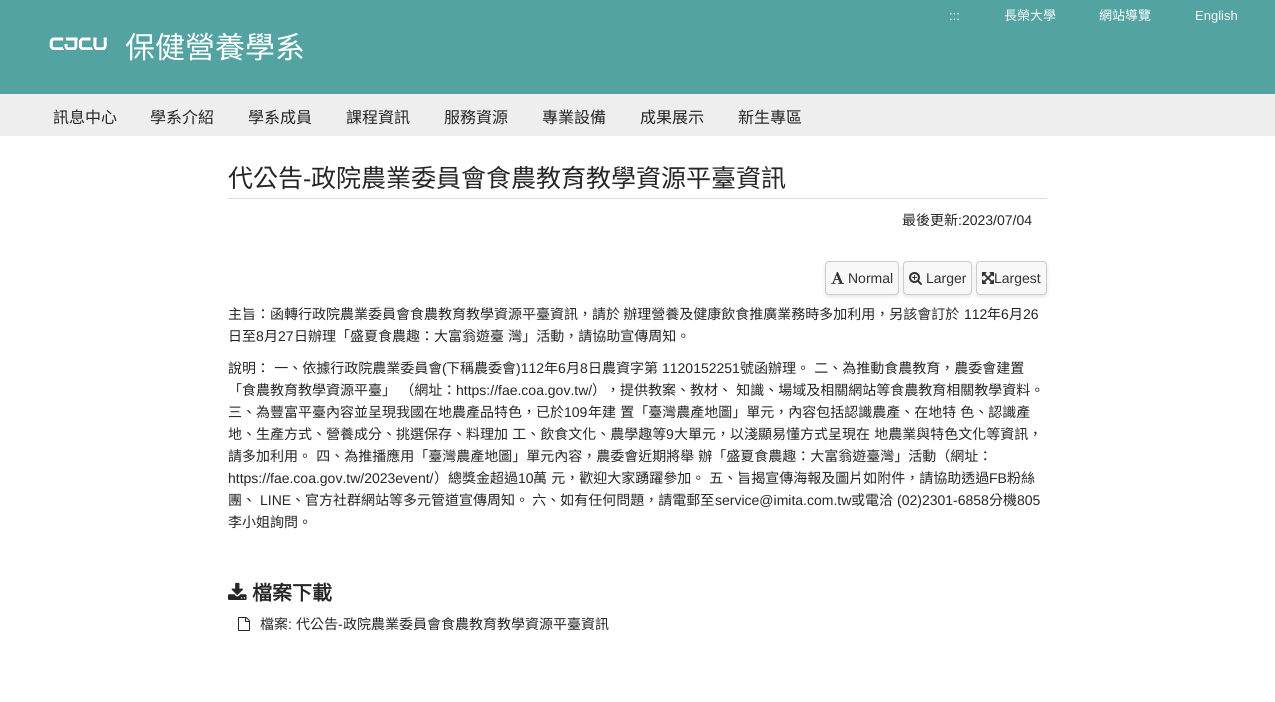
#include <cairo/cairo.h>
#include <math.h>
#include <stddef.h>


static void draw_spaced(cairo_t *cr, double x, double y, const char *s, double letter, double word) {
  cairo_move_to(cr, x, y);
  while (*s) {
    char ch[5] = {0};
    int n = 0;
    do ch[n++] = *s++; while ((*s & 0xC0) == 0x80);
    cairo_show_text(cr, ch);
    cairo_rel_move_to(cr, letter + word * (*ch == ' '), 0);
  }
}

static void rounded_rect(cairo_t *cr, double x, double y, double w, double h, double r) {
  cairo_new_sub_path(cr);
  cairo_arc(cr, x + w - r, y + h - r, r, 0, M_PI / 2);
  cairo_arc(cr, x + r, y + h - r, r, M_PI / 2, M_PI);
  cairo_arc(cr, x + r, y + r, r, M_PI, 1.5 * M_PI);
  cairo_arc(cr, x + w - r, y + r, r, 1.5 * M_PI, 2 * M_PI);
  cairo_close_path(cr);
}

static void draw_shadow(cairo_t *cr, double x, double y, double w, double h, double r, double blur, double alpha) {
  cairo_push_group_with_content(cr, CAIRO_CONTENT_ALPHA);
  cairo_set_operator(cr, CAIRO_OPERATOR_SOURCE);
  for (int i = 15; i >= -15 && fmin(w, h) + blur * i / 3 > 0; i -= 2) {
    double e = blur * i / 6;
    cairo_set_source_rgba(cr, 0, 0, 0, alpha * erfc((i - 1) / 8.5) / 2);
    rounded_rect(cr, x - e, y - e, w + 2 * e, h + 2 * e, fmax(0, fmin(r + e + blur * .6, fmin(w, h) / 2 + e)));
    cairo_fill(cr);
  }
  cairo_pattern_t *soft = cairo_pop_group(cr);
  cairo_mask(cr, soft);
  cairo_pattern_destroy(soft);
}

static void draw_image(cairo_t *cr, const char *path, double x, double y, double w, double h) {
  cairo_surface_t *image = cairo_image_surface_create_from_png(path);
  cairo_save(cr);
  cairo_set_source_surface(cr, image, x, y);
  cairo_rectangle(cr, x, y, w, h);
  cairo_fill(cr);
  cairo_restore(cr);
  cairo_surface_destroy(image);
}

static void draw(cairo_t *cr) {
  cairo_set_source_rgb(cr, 1, 1, 1);
  cairo_paint(cr);
  cairo_set_source_rgb(cr, 82 / 255.0, 163 / 255.0, 161 / 255.0);
  cairo_rectangle(cr, 0, 0, 1275, 94);
  cairo_fill(cr);
  draw_image(cr, "images/1.png", 49, 37, 58, 13);
  cairo_set_source_rgb(cr, 238 / 255.0, 238 / 255.0, 238 / 255.0);
  cairo_rectangle(cr, 0, 94, 1275, 42);
  cairo_fill(cr);
  cairo_set_source_rgb(cr, 221 / 255.0, 221 / 255.0, 221 / 255.0);
  cairo_rectangle(cr, 228, 198, 819, 1);
  cairo_fill(cr);
  cairo_set_source_rgb(cr, 0, 0, 0);
  draw_shadow(cr, 825, 263, 74, 34, 4, 2, 0.1);
  cairo_set_source_rgb(cr, 248 / 255.0, 248 / 255.0, 248 / 255.0);
  rounded_rect(cr, 825.5, 261.5, 73, 33, 3.5);
  cairo_fill_preserve(cr);
  cairo_set_source_rgb(cr, 204 / 255.0, 204 / 255.0, 204 / 255.0);
  cairo_set_line_width(cr, 1);
  cairo_stroke(cr);
  draw_image(cr, "images/2.png", 831, 272, 13, 12);
  cairo_set_source_rgb(cr, 0, 0, 0);
  draw_shadow(cr, 903, 263, 69, 34, 4, 2, 0.1);
  cairo_set_source_rgb(cr, 248 / 255.0, 248 / 255.0, 248 / 255.0);
  rounded_rect(cr, 903.5, 261.5, 68, 33, 3.5);
  cairo_fill_preserve(cr);
  cairo_set_source_rgb(cr, 204 / 255.0, 204 / 255.0, 204 / 255.0);
  cairo_stroke(cr);
  draw_image(cr, "images/3.png", 909, 272, 13, 13);
  cairo_set_source_rgb(cr, 0, 0, 0);
  draw_shadow(cr, 976, 263, 71, 34, 4, 2, 0.1);
  cairo_set_source_rgb(cr, 248 / 255.0, 248 / 255.0, 248 / 255.0);
  rounded_rect(cr, 976.5, 261.5, 70, 33, 3.5);
  cairo_fill_preserve(cr);
  cairo_set_source_rgb(cr, 204 / 255.0, 204 / 255.0, 204 / 255.0);
  cairo_stroke(cr);
  draw_image(cr, "images/4.png", 982, 272, 12, 12);
  draw_image(cr, "images/5.png", 228, 582, 19, 18);
  draw_image(cr, "images/6.png", 238, 617, 12, 14);
  cairo_select_font_face(cr, "Liberation Sans", CAIRO_FONT_SLANT_NORMAL, CAIRO_FONT_WEIGHT_NORMAL);
  cairo_set_font_size(cr, 13);
  cairo_set_source_rgb(cr, 1, 1, 1);
  cairo_move_to(cr, 949, 20);
  cairo_show_text(cr, ":::");
  cairo_select_font_face(cr, "Noto Sans CJK TC", CAIRO_FONT_SLANT_NORMAL, CAIRO_FONT_WEIGHT_NORMAL);
  cairo_move_to(cr, 1004, 20);
  cairo_show_text(cr, "長榮大學");
  cairo_move_to(cr, 1099, 20);
  cairo_show_text(cr, "網站導覽");
  cairo_select_font_face(cr, "Liberation Sans", CAIRO_FONT_SLANT_NORMAL, CAIRO_FONT_WEIGHT_NORMAL);
  cairo_move_to(cr, 1195, 20);
  cairo_show_text(cr, "English");
  cairo_select_font_face(cr, "Noto Sans CJK TC", CAIRO_FONT_SLANT_NORMAL, CAIRO_FONT_WEIGHT_NORMAL);
  cairo_set_font_size(cr, 30);
  cairo_move_to(cr, 125, 58);
  cairo_show_text(cr, "保健營養學系");
  cairo_set_font_size(cr, 16);
  cairo_set_source_rgb(cr, 38 / 255.0, 38 / 255.0, 38 / 255.0);
  cairo_move_to(cr, 53, 123);
  cairo_show_text(cr, "訊息中心");
  cairo_move_to(cr, 150, 123);
  cairo_show_text(cr, "學系介紹");
  cairo_move_to(cr, 248, 123);
  cairo_show_text(cr, "學系成員");
  cairo_move_to(cr, 346, 123);
  cairo_show_text(cr, "課程資訊");
  cairo_move_to(cr, 444, 123);
  cairo_show_text(cr, "服務資源");
  cairo_move_to(cr, 542, 123);
  cairo_show_text(cr, "專業設備");
  cairo_move_to(cr, 640, 123);
  cairo_show_text(cr, "成果展示");
  cairo_move_to(cr, 738, 123);
  cairo_show_text(cr, "新生專區");
  cairo_set_font_size(cr, 25);
  cairo_move_to(cr, 228, 187);
  cairo_show_text(cr, "代公告");
  cairo_select_font_face(cr, "Liberation Sans", CAIRO_FONT_SLANT_NORMAL, CAIRO_FONT_WEIGHT_NORMAL);
  cairo_move_to(cr, 303, 187);
  cairo_show_text(cr, "-");
  cairo_select_font_face(cr, "Noto Sans CJK TC", CAIRO_FONT_SLANT_NORMAL, CAIRO_FONT_WEIGHT_NORMAL);
  cairo_move_to(cr, 311, 187);
  cairo_show_text(cr, "政院農業委員會食農教育教學資源平臺資訊");
  cairo_set_font_size(cr, 14);
  cairo_move_to(cr, 902, 225);
  cairo_show_text(cr, "最後更新");
  cairo_select_font_face(cr, "Liberation Sans", CAIRO_FONT_SLANT_NORMAL, CAIRO_FONT_WEIGHT_NORMAL);
  cairo_move_to(cr, 958, 225);
  cairo_show_text(cr, ":2023/07/04");
  cairo_set_source_rgb(cr, 51 / 255.0, 51 / 255.0, 51 / 255.0);
  cairo_move_to(cr, 848, 283);
  cairo_show_text(cr, "Normal");
  cairo_move_to(cr, 926, 283);
  cairo_show_text(cr, "Larger");
  cairo_move_to(cr, 994, 283);
  cairo_show_text(cr, "Largest");
  cairo_select_font_face(cr, "Noto Sans CJK TC", CAIRO_FONT_SLANT_NORMAL, CAIRO_FONT_WEIGHT_NORMAL);
  cairo_set_source_rgb(cr, 38 / 255.0, 38 / 255.0, 38 / 255.0);
  cairo_move_to(cr, 228, 319);
  cairo_show_text(cr, "主旨：函轉行政院農業委員會食農教育教學資源平臺資訊，請於 辦理營養及健康飲食推廣業務時多加利用，另該會訂於");
  cairo_select_font_face(cr, "Liberation Sans", CAIRO_FONT_SLANT_NORMAL, CAIRO_FONT_WEIGHT_NORMAL);
  cairo_move_to(cr, 964, 319);
  cairo_show_text(cr, "112");
  cairo_select_font_face(cr, "Noto Sans CJK TC", CAIRO_FONT_SLANT_NORMAL, CAIRO_FONT_WEIGHT_NORMAL);
  cairo_move_to(cr, 987, 319);
  cairo_show_text(cr, "年");
  cairo_select_font_face(cr, "Liberation Sans", CAIRO_FONT_SLANT_NORMAL, CAIRO_FONT_WEIGHT_NORMAL);
  cairo_move_to(cr, 1001, 319);
  cairo_show_text(cr, "6");
  cairo_select_font_face(cr, "Noto Sans CJK TC", CAIRO_FONT_SLANT_NORMAL, CAIRO_FONT_WEIGHT_NORMAL);
  cairo_move_to(cr, 1009, 319);
  cairo_show_text(cr, "月");
  cairo_select_font_face(cr, "Liberation Sans", CAIRO_FONT_SLANT_NORMAL, CAIRO_FONT_WEIGHT_NORMAL);
  cairo_move_to(cr, 1023, 319);
  cairo_show_text(cr, "26");
  cairo_select_font_face(cr, "Noto Sans CJK TC", CAIRO_FONT_SLANT_NORMAL, CAIRO_FONT_WEIGHT_NORMAL);
  cairo_move_to(cr, 228, 341);
  cairo_show_text(cr, "日至");
  cairo_select_font_face(cr, "Liberation Sans", CAIRO_FONT_SLANT_NORMAL, CAIRO_FONT_WEIGHT_NORMAL);
  cairo_move_to(cr, 256, 341);
  cairo_show_text(cr, "8");
  cairo_select_font_face(cr, "Noto Sans CJK TC", CAIRO_FONT_SLANT_NORMAL, CAIRO_FONT_WEIGHT_NORMAL);
  cairo_move_to(cr, 264, 341);
  cairo_show_text(cr, "月");
  cairo_select_font_face(cr, "Liberation Sans", CAIRO_FONT_SLANT_NORMAL, CAIRO_FONT_WEIGHT_NORMAL);
  cairo_move_to(cr, 278, 341);
  cairo_show_text(cr, "27");
  cairo_select_font_face(cr, "Noto Sans CJK TC", CAIRO_FONT_SLANT_NORMAL, CAIRO_FONT_WEIGHT_NORMAL);
  draw_spaced(cr, 294, 341, "日辦理「盛夏食農趣：大富翁遊臺 灣」活動，請協助宣傳周知。", 0, 1);
  draw_spaced(cr, 228, 373, "說明： 一、依據行政院農業委員會", 0, 1);
  cairo_select_font_face(cr, "Liberation Sans", CAIRO_FONT_SLANT_NORMAL, CAIRO_FONT_WEIGHT_NORMAL);
  cairo_move_to(cr, 442, 373);
  cairo_show_text(cr, "(");
  cairo_select_font_face(cr, "Noto Sans CJK TC", CAIRO_FONT_SLANT_NORMAL, CAIRO_FONT_WEIGHT_NORMAL);
  cairo_move_to(cr, 446, 373);
  cairo_show_text(cr, "下稱農委會");
  cairo_select_font_face(cr, "Liberation Sans", CAIRO_FONT_SLANT_NORMAL, CAIRO_FONT_WEIGHT_NORMAL);
  cairo_move_to(cr, 516, 373);
  cairo_show_text(cr, ")112");
  cairo_select_font_face(cr, "Noto Sans CJK TC", CAIRO_FONT_SLANT_NORMAL, CAIRO_FONT_WEIGHT_NORMAL);
  cairo_move_to(cr, 544, 373);
  cairo_show_text(cr, "年");
  cairo_select_font_face(cr, "Liberation Sans", CAIRO_FONT_SLANT_NORMAL, CAIRO_FONT_WEIGHT_NORMAL);
  cairo_move_to(cr, 558, 373);
  cairo_show_text(cr, "6");
  cairo_select_font_face(cr, "Noto Sans CJK TC", CAIRO_FONT_SLANT_NORMAL, CAIRO_FONT_WEIGHT_NORMAL);
  cairo_move_to(cr, 566, 373);
  cairo_show_text(cr, "月");
  cairo_select_font_face(cr, "Liberation Sans", CAIRO_FONT_SLANT_NORMAL, CAIRO_FONT_WEIGHT_NORMAL);
  cairo_move_to(cr, 580, 373);
  cairo_show_text(cr, "8");
  cairo_select_font_face(cr, "Noto Sans CJK TC", CAIRO_FONT_SLANT_NORMAL, CAIRO_FONT_WEIGHT_NORMAL);
  cairo_move_to(cr, 588, 373);
  cairo_show_text(cr, "日農資字第");
  cairo_select_font_face(cr, "Liberation Sans", CAIRO_FONT_SLANT_NORMAL, CAIRO_FONT_WEIGHT_NORMAL);
  cairo_move_to(cr, 662, 373);
  cairo_show_text(cr, "1120152251");
  cairo_select_font_face(cr, "Noto Sans CJK TC", CAIRO_FONT_SLANT_NORMAL, CAIRO_FONT_WEIGHT_NORMAL);
  draw_spaced(cr, 740, 373, "號函辦理。 二、為推動食農教育，農委會建置", 0, 1);
  draw_spaced(cr, 228, 395, "「食農教育教學資源平臺」 （網址：", 0, 1);
  cairo_select_font_face(cr, "Liberation Sans", CAIRO_FONT_SLANT_NORMAL, CAIRO_FONT_WEIGHT_NORMAL);
  cairo_move_to(cr, 456, 395);
  cairo_show_text(cr, "https://fae.coa.gov.tw/");
  cairo_select_font_face(cr, "Noto Sans CJK TC", CAIRO_FONT_SLANT_NORMAL, CAIRO_FONT_WEIGHT_NORMAL);
  draw_spaced(cr, 592, 395, "），提供教案、教材、 知識、場域及相關網站等食農教育相關教學資料。", 0, 1);
  cairo_move_to(cr, 228, 417);
  cairo_show_text(cr, "三、為豐富平臺內容並呈現我國在地農產品特色，已於");
  cairo_select_font_face(cr, "Liberation Sans", CAIRO_FONT_SLANT_NORMAL, CAIRO_FONT_WEIGHT_NORMAL);
  cairo_move_to(cr, 564, 417);
  cairo_show_text(cr, "109");
  cairo_select_font_face(cr, "Noto Sans CJK TC", CAIRO_FONT_SLANT_NORMAL, CAIRO_FONT_WEIGHT_NORMAL);
  draw_spaced(cr, 588, 417, "年建 置「臺灣農產地圖」單元，內容包括認識農產、在地特 色、認識產", 0, 1);
  draw_spaced(cr, 228, 439, "地、生產方式、營養成分、挑選保存、料理加 工、飲食文化、農學趣等", 0, 1);
  cairo_select_font_face(cr, "Liberation Sans", CAIRO_FONT_SLANT_NORMAL, CAIRO_FONT_WEIGHT_NORMAL);
  cairo_move_to(cr, 666, 439);
  cairo_show_text(cr, "9");
  cairo_select_font_face(cr, "Noto Sans CJK TC", CAIRO_FONT_SLANT_NORMAL, CAIRO_FONT_WEIGHT_NORMAL);
  draw_spaced(cr, 674, 439, "大單元，以淺顯易懂方式呈現在 地農業與特色文化等資訊，", 0, 1);
  draw_spaced(cr, 228, 461, "請多加利用。 四、為推播應用「臺灣農產地圖」單元內容，農委會近期將舉 辦「盛夏食農趣：大富翁遊臺灣」活動（網址：", 0, 1);
  cairo_select_font_face(cr, "Liberation Sans", CAIRO_FONT_SLANT_NORMAL, CAIRO_FONT_WEIGHT_NORMAL);
  cairo_move_to(cr, 228, 483);
  cairo_show_text(cr, "https://fae.coa.gov.tw/2023event/");
  cairo_select_font_face(cr, "Noto Sans CJK TC", CAIRO_FONT_SLANT_NORMAL, CAIRO_FONT_WEIGHT_NORMAL);
  cairo_move_to(cr, 434, 483);
  cairo_show_text(cr, "）總獎金超過");
  cairo_select_font_face(cr, "Liberation Sans", CAIRO_FONT_SLANT_NORMAL, CAIRO_FONT_WEIGHT_NORMAL);
  cairo_move_to(cr, 518, 483);
  cairo_show_text(cr, "10");
  cairo_select_font_face(cr, "Noto Sans CJK TC", CAIRO_FONT_SLANT_NORMAL, CAIRO_FONT_WEIGHT_NORMAL);
  draw_spaced(cr, 533, 483, "萬 元，歡迎大家踴躍參加。 五、旨揭宣傳海報及圖片如附件，請協助透過", 0, 1);
  cairo_select_font_face(cr, "Liberation Sans", CAIRO_FONT_SLANT_NORMAL, CAIRO_FONT_WEIGHT_NORMAL);
  cairo_move_to(cr, 989, 483);
  cairo_show_text(cr, "FB");
  cairo_select_font_face(cr, "Noto Sans CJK TC", CAIRO_FONT_SLANT_NORMAL, CAIRO_FONT_WEIGHT_NORMAL);
  cairo_move_to(cr, 1007, 483);
  cairo_show_text(cr, "粉絲");
  cairo_move_to(cr, 228, 505);
  cairo_show_text(cr, "團、");
  cairo_select_font_face(cr, "Liberation Sans", CAIRO_FONT_SLANT_NORMAL, CAIRO_FONT_WEIGHT_NORMAL);
  cairo_move_to(cr, 260, 505);
  cairo_show_text(cr, "LINE");
  cairo_select_font_face(cr, "Noto Sans CJK TC", CAIRO_FONT_SLANT_NORMAL, CAIRO_FONT_WEIGHT_NORMAL);
  cairo_move_to(cr, 291, 505);
  cairo_show_text(cr, "、官方社群網站等多元管道宣傳周知。 六、如有任何問題，請電郵至");
  cairo_select_font_face(cr, "Liberation Sans", CAIRO_FONT_SLANT_NORMAL, CAIRO_FONT_WEIGHT_NORMAL);
  cairo_move_to(cr, 715, 505);
  cairo_show_text(cr, "service@imita.com.tw");
  cairo_select_font_face(cr, "Noto Sans CJK TC", CAIRO_FONT_SLANT_NORMAL, CAIRO_FONT_WEIGHT_NORMAL);
  cairo_move_to(cr, 851, 505);
  cairo_show_text(cr, "或電洽");
  cairo_select_font_face(cr, "Liberation Sans", CAIRO_FONT_SLANT_NORMAL, CAIRO_FONT_WEIGHT_NORMAL);
  cairo_move_to(cr, 897, 505);
  cairo_show_text(cr, "(02)2301-6858");
  cairo_select_font_face(cr, "Noto Sans CJK TC", CAIRO_FONT_SLANT_NORMAL, CAIRO_FONT_WEIGHT_NORMAL);
  cairo_move_to(cr, 989, 505);
  cairo_show_text(cr, "分機");
  cairo_select_font_face(cr, "Liberation Sans", CAIRO_FONT_SLANT_NORMAL, CAIRO_FONT_WEIGHT_NORMAL);
  cairo_move_to(cr, 1017, 505);
  cairo_show_text(cr, "805");
  cairo_select_font_face(cr, "Noto Sans CJK TC", CAIRO_FONT_SLANT_NORMAL, CAIRO_FONT_WEIGHT_NORMAL);
  cairo_move_to(cr, 228, 527);
  cairo_show_text(cr, "李小姐詢問。");
  cairo_select_font_face(cr, "Noto Sans CJK TC", CAIRO_FONT_SLANT_NORMAL, CAIRO_FONT_WEIGHT_BOLD);
  cairo_set_font_size(cr, 20);
  cairo_move_to(cr, 252, 600);
  cairo_show_text(cr, "檔案下載");
  cairo_select_font_face(cr, "Noto Sans CJK TC", CAIRO_FONT_SLANT_NORMAL, CAIRO_FONT_WEIGHT_NORMAL);
  cairo_set_font_size(cr, 14);
  cairo_move_to(cr, 260, 629);
  cairo_show_text(cr, "檔案");
  cairo_select_font_face(cr, "Liberation Sans", CAIRO_FONT_SLANT_NORMAL, CAIRO_FONT_WEIGHT_NORMAL);
  cairo_move_to(cr, 288, 629);
  cairo_show_text(cr, ":");
  cairo_select_font_face(cr, "Noto Sans CJK TC", CAIRO_FONT_SLANT_NORMAL, CAIRO_FONT_WEIGHT_NORMAL);
  cairo_move_to(cr, 296, 629);
  cairo_show_text(cr, "代公告");
  cairo_select_font_face(cr, "Liberation Sans", CAIRO_FONT_SLANT_NORMAL, CAIRO_FONT_WEIGHT_NORMAL);
  cairo_move_to(cr, 338, 629);
  cairo_show_text(cr, "-");
  cairo_select_font_face(cr, "Noto Sans CJK TC", CAIRO_FONT_SLANT_NORMAL, CAIRO_FONT_WEIGHT_NORMAL);
  cairo_move_to(cr, 343, 629);
  cairo_show_text(cr, "政院農業委員會食農教育教學資源平臺資訊");
}

int main(void) {
  cairo_surface_t *surface = cairo_image_surface_create(CAIRO_FORMAT_RGB24, 1275, 702);
  cairo_t *cr = cairo_create(surface);
  cairo_font_options_t *options = cairo_font_options_create();
  cairo_font_options_set_hint_metrics(options, CAIRO_HINT_METRICS_OFF);
  cairo_font_options_set_hint_style(options, CAIRO_HINT_STYLE_NONE);
  cairo_set_font_options(cr, options);
  cairo_set_miter_limit(cr, 4);
  draw(cr);
  cairo_surface_write_to_png(surface, "out.png");
  cairo_font_options_destroy(options);
  cairo_destroy(cr);
  cairo_surface_destroy(surface);
  return 0;
}
